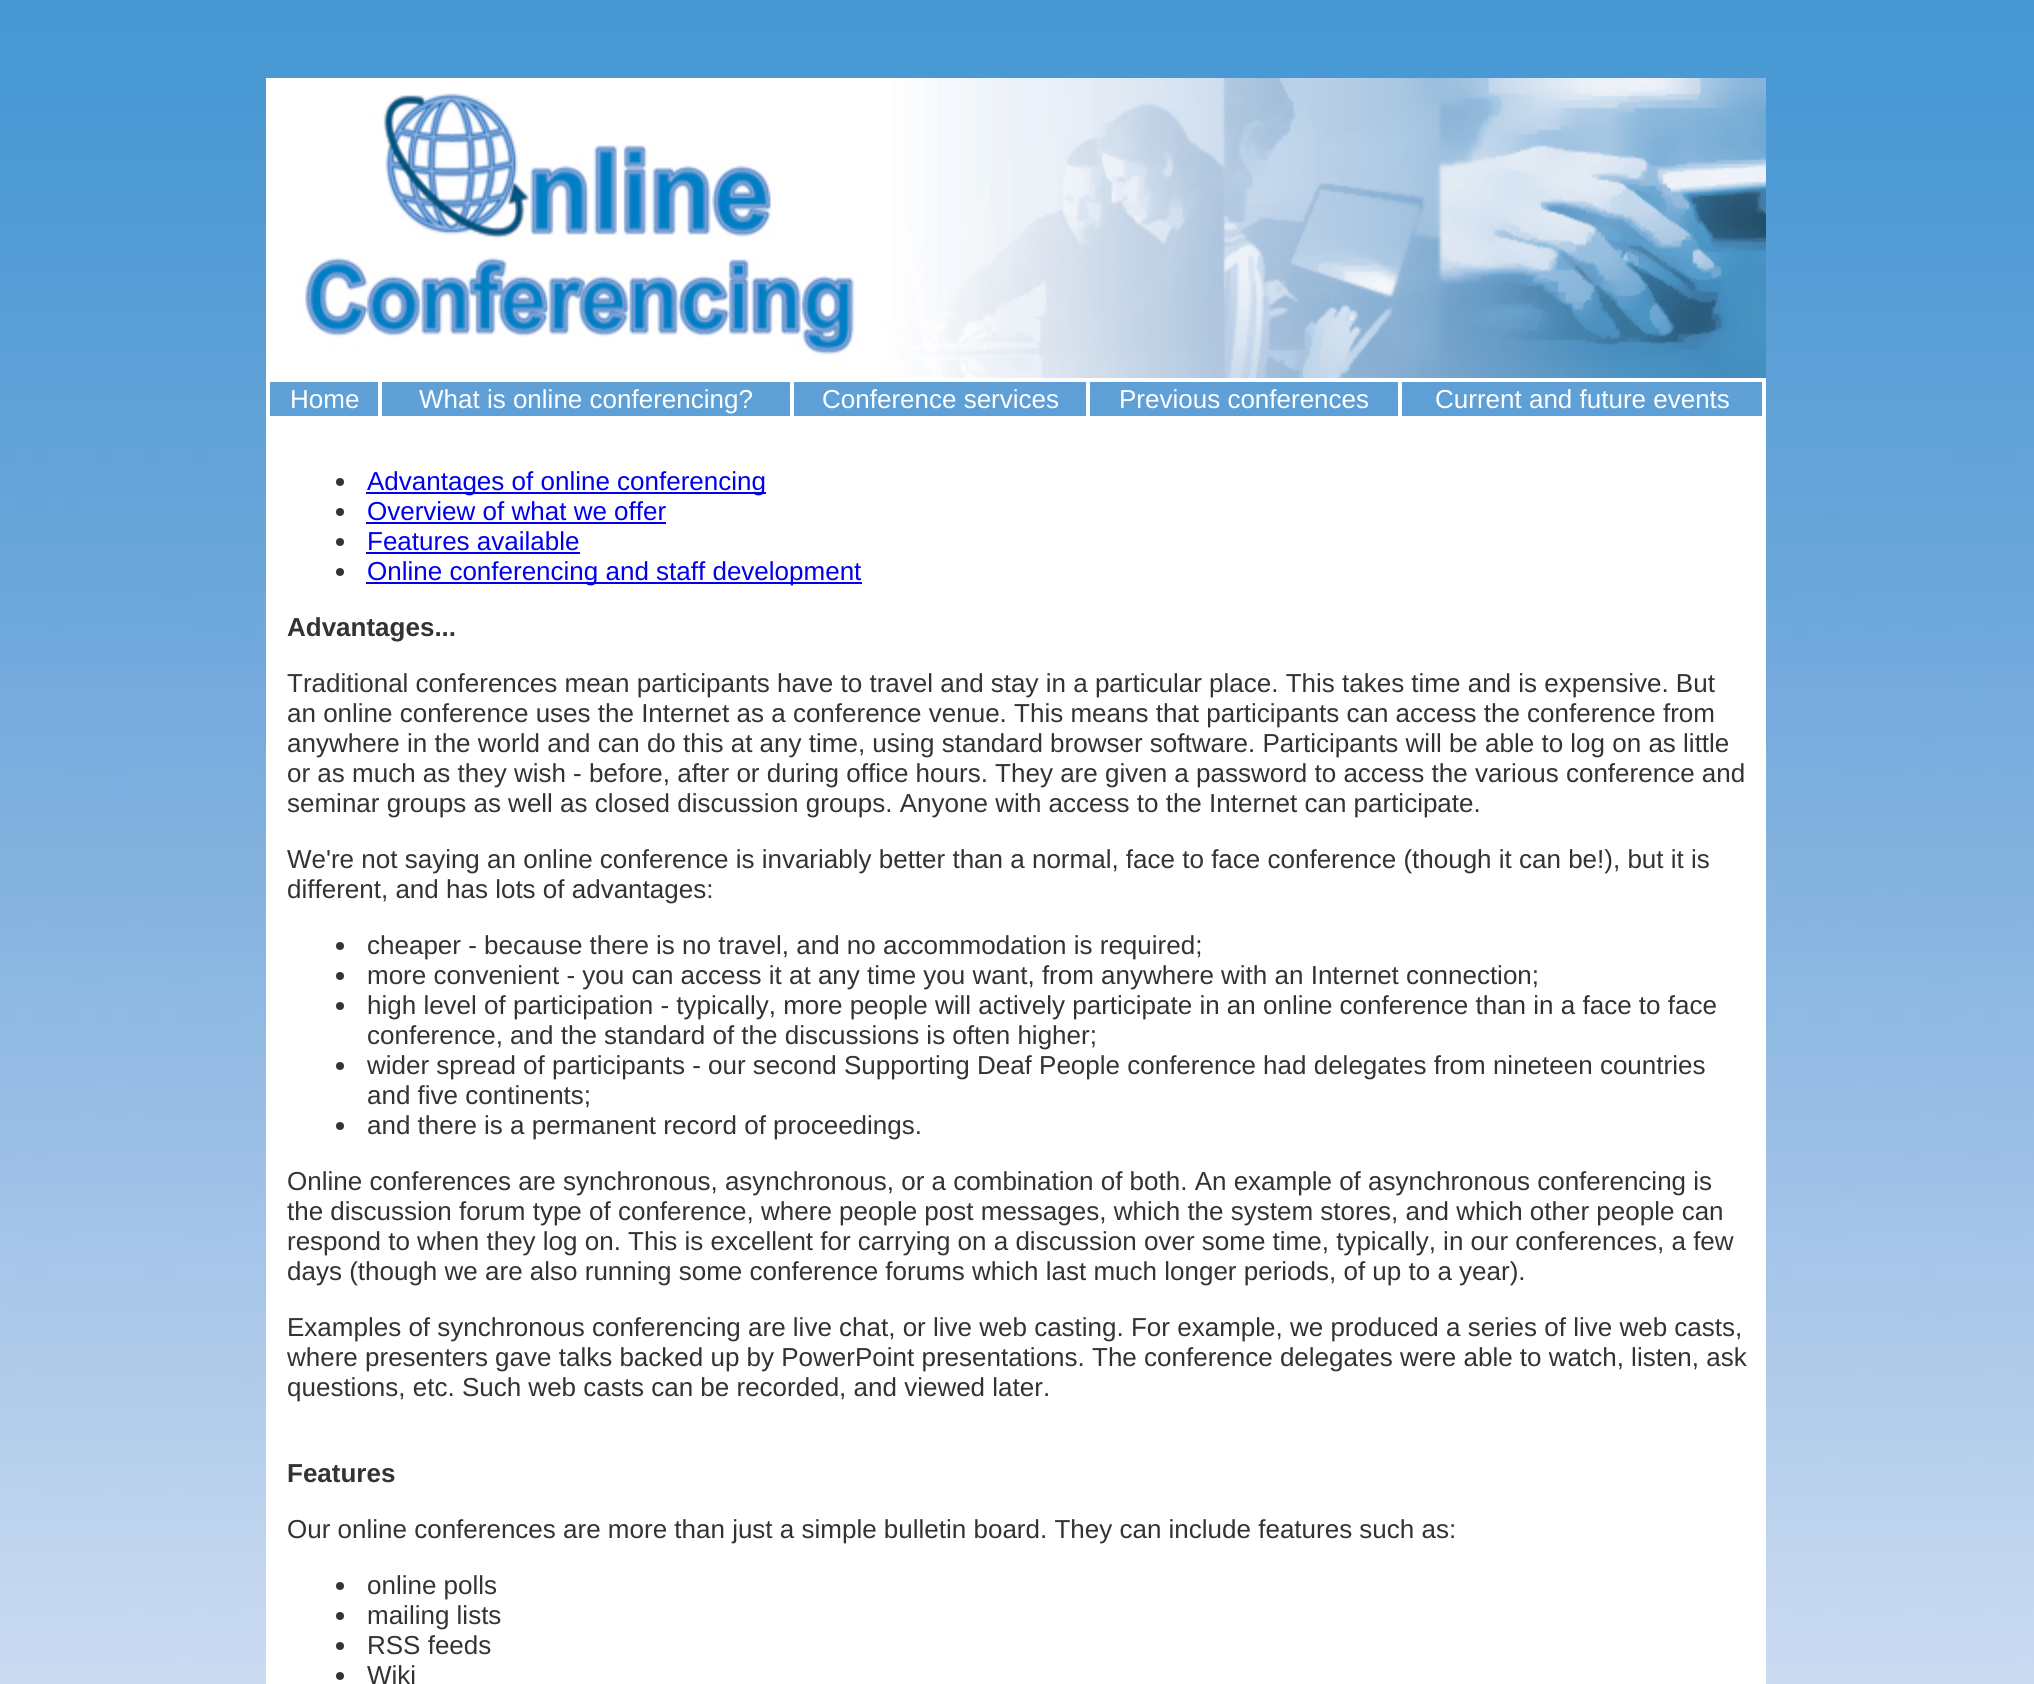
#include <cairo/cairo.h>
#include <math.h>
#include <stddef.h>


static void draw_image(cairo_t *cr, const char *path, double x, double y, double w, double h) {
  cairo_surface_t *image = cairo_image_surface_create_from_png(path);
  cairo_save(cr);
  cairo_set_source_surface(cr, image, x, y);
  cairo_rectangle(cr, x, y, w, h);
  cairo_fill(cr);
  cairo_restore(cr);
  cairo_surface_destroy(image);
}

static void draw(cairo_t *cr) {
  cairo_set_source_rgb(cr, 1, 1, 1);
  cairo_paint(cr);
  draw_image(cr, "images/1.png", 0, 0, 2034, 1684);
  draw_image(cr, "images/2.png", 266, 78, 1500, 300);
  cairo_set_source_rgb(cr, 93 / 255.0, 160 / 255.0, 215 / 255.0);
  cairo_rectangle(cr, 270, 401, 1492, 15);
  cairo_fill(cr);
  cairo_rectangle(cr, 267, 379, 1498, 40);
  cairo_set_source_rgb(cr, 1, 1, 1);
  cairo_stroke(cr);
  cairo_rectangle(cr, 269, 381, 110, 36);
  cairo_stroke(cr);
  cairo_rectangle(cr, 381, 381, 410, 36);
  cairo_stroke(cr);
  cairo_rectangle(cr, 793, 381, 294, 36);
  cairo_stroke(cr);
  cairo_rectangle(cr, 1089, 381, 310, 36);
  cairo_stroke(cr);
  cairo_rectangle(cr, 1401, 381, 362, 36);
  cairo_stroke(cr);
  cairo_rectangle(cr, 266, 420, 1500, 1264);
  cairo_fill(cr);
  cairo_set_source_rgb(cr, 51 / 255.0, 51 / 255.0, 51 / 255.0);
  cairo_arc(cr, 340, 482, 4, 0, 2 * M_PI);
  cairo_fill(cr);
  cairo_set_source_rgb(cr, 0, 0, 238 / 255.0);
  cairo_rectangle(cr, 366, 492, 400, 2);
  cairo_fill(cr);
  cairo_set_source_rgb(cr, 51 / 255.0, 51 / 255.0, 51 / 255.0);
  cairo_arc(cr, 340, 512, 4, 0, 2 * M_PI);
  cairo_fill(cr);
  cairo_set_source_rgb(cr, 0, 0, 238 / 255.0);
  cairo_rectangle(cr, 366, 522, 300, 2);
  cairo_fill(cr);
  cairo_set_source_rgb(cr, 51 / 255.0, 51 / 255.0, 51 / 255.0);
  cairo_arc(cr, 340, 542, 4, 0, 2 * M_PI);
  cairo_fill(cr);
  cairo_set_source_rgb(cr, 0, 0, 238 / 255.0);
  cairo_rectangle(cr, 366, 552, 214, 2);
  cairo_fill(cr);
  cairo_set_source_rgb(cr, 51 / 255.0, 51 / 255.0, 51 / 255.0);
  cairo_arc(cr, 340, 572, 4, 0, 2 * M_PI);
  cairo_fill(cr);
  cairo_set_source_rgb(cr, 0, 0, 238 / 255.0);
  cairo_rectangle(cr, 366, 582, 496, 2);
  cairo_fill(cr);
  cairo_set_source_rgb(cr, 51 / 255.0, 51 / 255.0, 51 / 255.0);
  cairo_arc(cr, 340, 946, 4, 0, 2 * M_PI);
  cairo_fill(cr);
  cairo_arc(cr, 340, 976, 4, 0, 2 * M_PI);
  cairo_fill(cr);
  cairo_arc(cr, 340, 1006, 4, 0, 2 * M_PI);
  cairo_fill(cr);
  cairo_arc(cr, 340, 1066, 4, 0, 2 * M_PI);
  cairo_fill(cr);
  cairo_arc(cr, 340, 1126, 4, 0, 2 * M_PI);
  cairo_fill(cr);
  cairo_arc(cr, 340, 1586, 4, 0, 2 * M_PI);
  cairo_fill(cr);
  cairo_arc(cr, 340, 1616, 4, 0, 2 * M_PI);
  cairo_fill(cr);
  cairo_arc(cr, 340, 1646, 4, 0, 2 * M_PI);
  cairo_fill(cr);
  cairo_arc(cr, 340, 1676, 4, 0, 2 * M_PI);
  cairo_fill(cr);
  cairo_select_font_face(cr, "Liberation Sans", CAIRO_FONT_SLANT_NORMAL, CAIRO_FONT_WEIGHT_NORMAL);
  cairo_set_font_size(cr, 26);
  cairo_set_source_rgb(cr, 1, 1, 1);
  cairo_move_to(cr, 290, 408);
  cairo_show_text(cr, "Home");
  cairo_move_to(cr, 419, 408);
  cairo_show_text(cr, "What is online conferencing?");
  cairo_move_to(cr, 822, 408);
  cairo_show_text(cr, "Conference services");
  cairo_move_to(cr, 1119, 408);
  cairo_show_text(cr, "Previous conferences");
  cairo_move_to(cr, 1435, 408);
  cairo_show_text(cr, "Current and future events");
  cairo_set_source_rgb(cr, 0, 0, 238 / 255.0);
  cairo_move_to(cr, 367, 490);
  cairo_show_text(cr, "Advantages of online conferencing");
  cairo_move_to(cr, 367, 520);
  cairo_show_text(cr, "Overview of what we offer");
  cairo_move_to(cr, 367, 550);
  cairo_show_text(cr, "Features available");
  cairo_move_to(cr, 367, 580);
  cairo_show_text(cr, "Online conferencing and staff development");
  cairo_select_font_face(cr, "Liberation Sans", CAIRO_FONT_SLANT_NORMAL, CAIRO_FONT_WEIGHT_BOLD);
  cairo_set_source_rgb(cr, 51 / 255.0, 51 / 255.0, 51 / 255.0);
  cairo_move_to(cr, 287, 636);
  cairo_show_text(cr, "Advantages...");
  cairo_select_font_face(cr, "Liberation Sans", CAIRO_FONT_SLANT_NORMAL, CAIRO_FONT_WEIGHT_NORMAL);
  cairo_move_to(cr, 287, 692);
  cairo_show_text(cr, "Traditional conferences mean participants have to travel and stay in a particular place. This takes time and is expensive. But");
  cairo_move_to(cr, 287, 722);
  cairo_show_text(cr, "an online conference uses the Internet as a conference venue. This means that participants can access the conference from");
  cairo_move_to(cr, 287, 752);
  cairo_show_text(cr, "anywhere in the world and can do this at any time, using standard browser software. Participants will be able to log on as little");
  cairo_move_to(cr, 287, 782);
  cairo_show_text(cr, "or as much as they wish - before, after or during office hours. They are given a password to access the various conference and");
  cairo_move_to(cr, 287, 812);
  cairo_show_text(cr, "seminar groups as well as closed discussion groups. Anyone with access to the Internet can participate.");
  cairo_move_to(cr, 287, 868);
  cairo_show_text(cr, "We're not saying an online conference is invariably better than a normal, face to face conference (though it can be!), but it is");
  cairo_move_to(cr, 287, 898);
  cairo_show_text(cr, "different, and has lots of advantages:");
  cairo_move_to(cr, 367, 954);
  cairo_show_text(cr, "cheaper - because there is no travel, and no accommodation is required;");
  cairo_move_to(cr, 367, 984);
  cairo_show_text(cr, "more convenient - you can access it at any time you want, from anywhere with an Internet connection;");
  cairo_move_to(cr, 367, 1014);
  cairo_show_text(cr, "high level of participation - typically, more people will actively participate in an online conference than in a face to face");
  cairo_move_to(cr, 367, 1044);
  cairo_show_text(cr, "conference, and the standard of the discussions is often higher;");
  cairo_move_to(cr, 367, 1074);
  cairo_show_text(cr, "wider spread of participants - our second Supporting Deaf People conference had delegates from nineteen countries");
  cairo_move_to(cr, 367, 1104);
  cairo_show_text(cr, "and five continents;");
  cairo_move_to(cr, 367, 1134);
  cairo_show_text(cr, "and there is a permanent record of proceedings.");
  cairo_move_to(cr, 287, 1190);
  cairo_show_text(cr, "Online conferences are synchronous, asynchronous, or a combination of both. An example of asynchronous conferencing is");
  cairo_move_to(cr, 287, 1220);
  cairo_show_text(cr, "the discussion forum type of conference, where people post messages, which the system stores, and which other people can");
  cairo_move_to(cr, 287, 1250);
  cairo_show_text(cr, "respond to when they log on. This is excellent for carrying on a discussion over some time, typically, in our conferences, a few");
  cairo_move_to(cr, 287, 1280);
  cairo_show_text(cr, "days (though we are also running some conference forums which last much longer periods, of up to a year).");
  cairo_move_to(cr, 287, 1336);
  cairo_show_text(cr, "Examples of synchronous conferencing are live chat, or live web casting. For example, we produced a series of live web casts,");
  cairo_move_to(cr, 287, 1366);
  cairo_show_text(cr, "where presenters gave talks backed up by PowerPoint presentations. The conference delegates were able to watch, listen, ask");
  cairo_move_to(cr, 287, 1396);
  cairo_show_text(cr, "questions, etc. Such web casts can be recorded, and viewed later.");
  cairo_select_font_face(cr, "Liberation Sans", CAIRO_FONT_SLANT_NORMAL, CAIRO_FONT_WEIGHT_BOLD);
  cairo_move_to(cr, 287, 1482);
  cairo_show_text(cr, "Features");
  cairo_select_font_face(cr, "Liberation Sans", CAIRO_FONT_SLANT_NORMAL, CAIRO_FONT_WEIGHT_NORMAL);
  cairo_move_to(cr, 287, 1538);
  cairo_show_text(cr, "Our online conferences are more than just a simple bulletin board. They can include features such as:");
  cairo_move_to(cr, 367, 1594);
  cairo_show_text(cr, "online polls");
  cairo_move_to(cr, 367, 1624);
  cairo_show_text(cr, "mailing lists");
  cairo_move_to(cr, 367, 1654);
  cairo_show_text(cr, "RSS feeds");
  cairo_move_to(cr, 367, 1684);
  cairo_show_text(cr, "Wiki");
}

int main(void) {
  cairo_surface_t *surface = cairo_image_surface_create(CAIRO_FORMAT_RGB24, 2034, 1684);
  cairo_t *cr = cairo_create(surface);
  cairo_font_options_t *options = cairo_font_options_create();
  cairo_font_options_set_hint_metrics(options, CAIRO_HINT_METRICS_OFF);
  cairo_font_options_set_hint_style(options, CAIRO_HINT_STYLE_NONE);
  cairo_set_font_options(cr, options);
  cairo_set_miter_limit(cr, 4);
  draw(cr);
  cairo_surface_write_to_png(surface, "out.png");
  cairo_font_options_destroy(options);
  cairo_destroy(cr);
  cairo_surface_destroy(surface);
  return 0;
}
